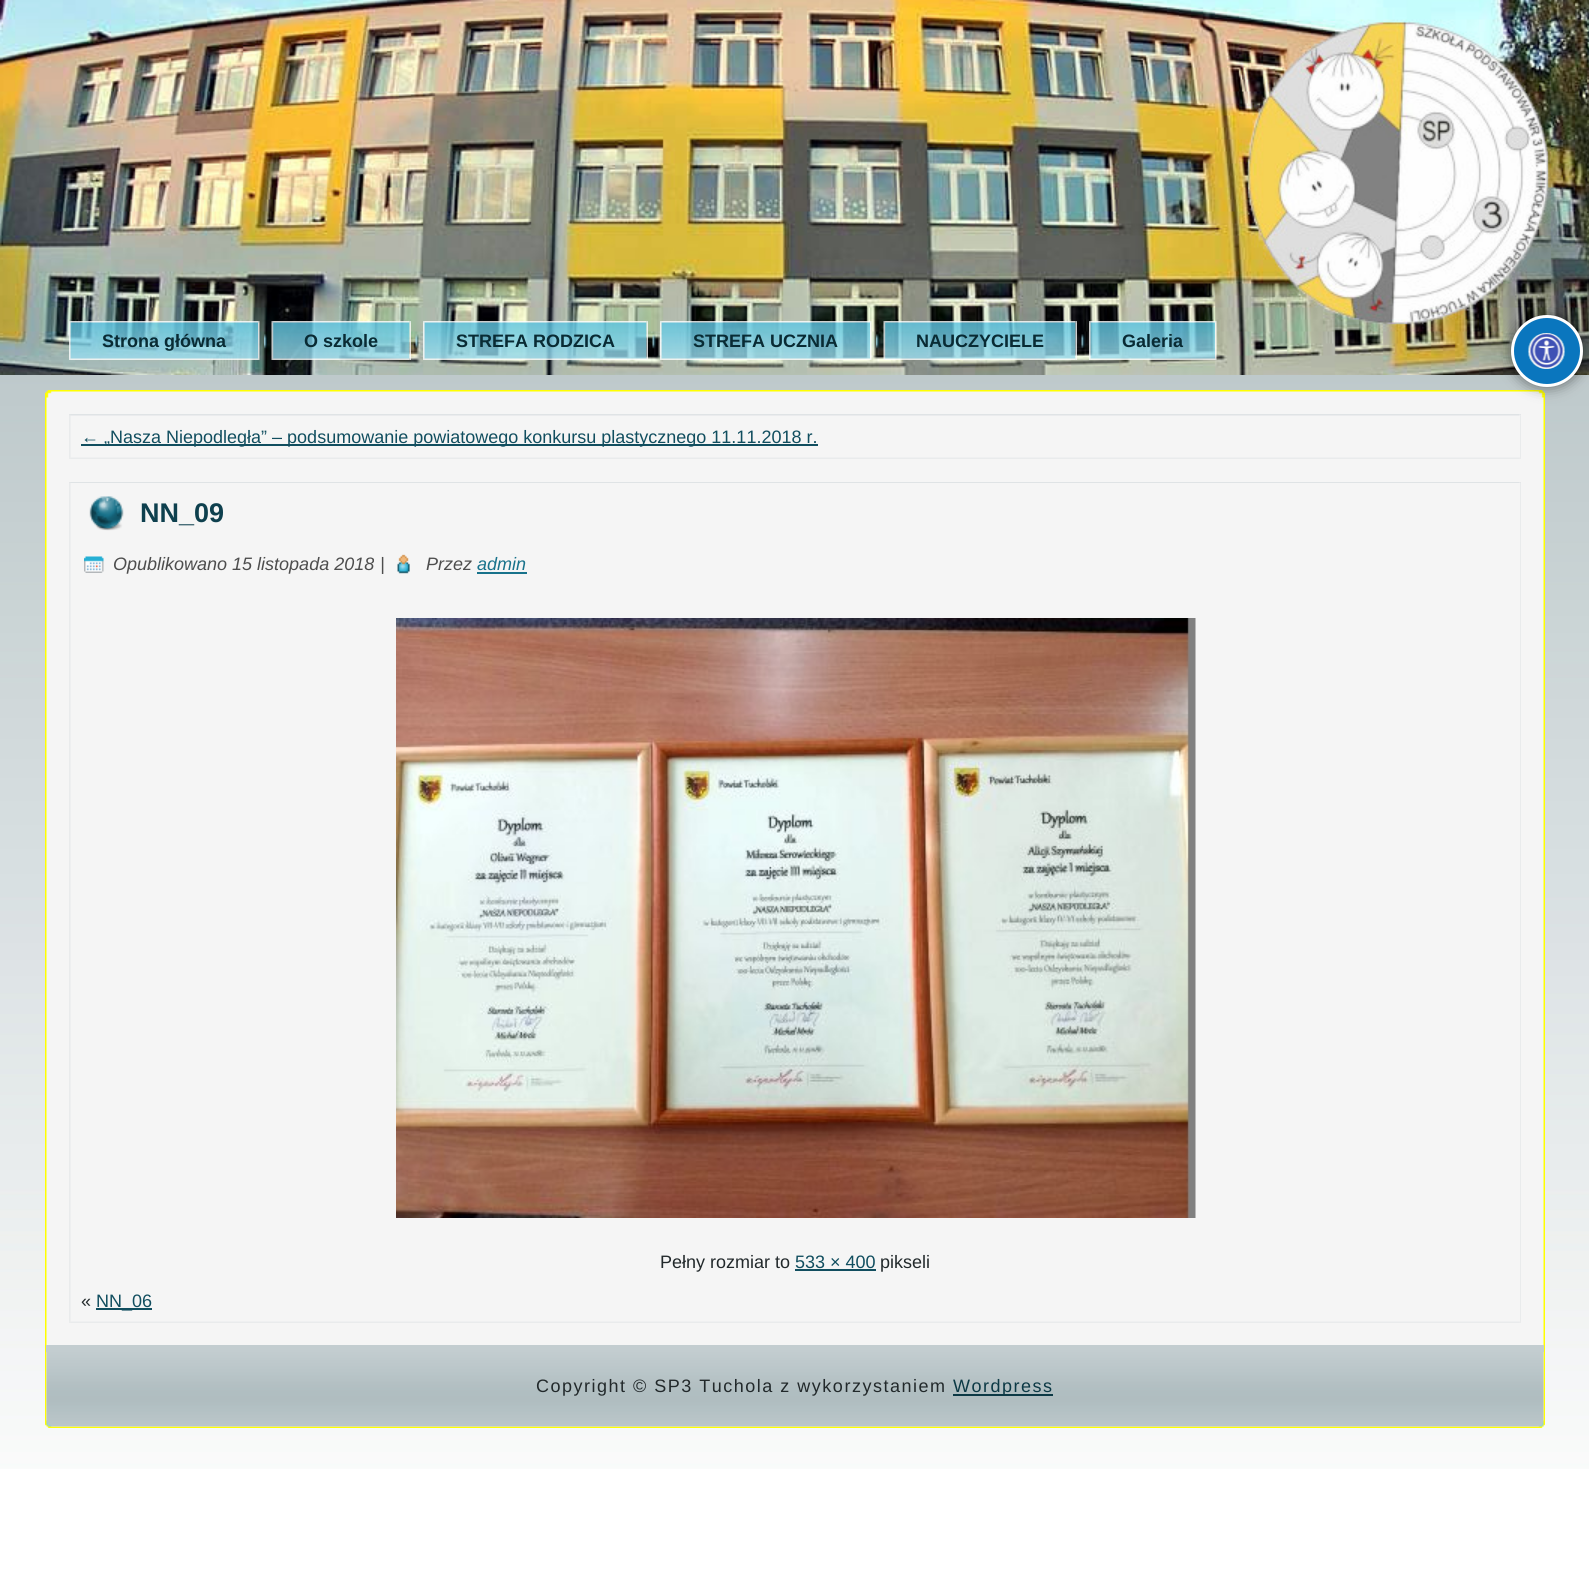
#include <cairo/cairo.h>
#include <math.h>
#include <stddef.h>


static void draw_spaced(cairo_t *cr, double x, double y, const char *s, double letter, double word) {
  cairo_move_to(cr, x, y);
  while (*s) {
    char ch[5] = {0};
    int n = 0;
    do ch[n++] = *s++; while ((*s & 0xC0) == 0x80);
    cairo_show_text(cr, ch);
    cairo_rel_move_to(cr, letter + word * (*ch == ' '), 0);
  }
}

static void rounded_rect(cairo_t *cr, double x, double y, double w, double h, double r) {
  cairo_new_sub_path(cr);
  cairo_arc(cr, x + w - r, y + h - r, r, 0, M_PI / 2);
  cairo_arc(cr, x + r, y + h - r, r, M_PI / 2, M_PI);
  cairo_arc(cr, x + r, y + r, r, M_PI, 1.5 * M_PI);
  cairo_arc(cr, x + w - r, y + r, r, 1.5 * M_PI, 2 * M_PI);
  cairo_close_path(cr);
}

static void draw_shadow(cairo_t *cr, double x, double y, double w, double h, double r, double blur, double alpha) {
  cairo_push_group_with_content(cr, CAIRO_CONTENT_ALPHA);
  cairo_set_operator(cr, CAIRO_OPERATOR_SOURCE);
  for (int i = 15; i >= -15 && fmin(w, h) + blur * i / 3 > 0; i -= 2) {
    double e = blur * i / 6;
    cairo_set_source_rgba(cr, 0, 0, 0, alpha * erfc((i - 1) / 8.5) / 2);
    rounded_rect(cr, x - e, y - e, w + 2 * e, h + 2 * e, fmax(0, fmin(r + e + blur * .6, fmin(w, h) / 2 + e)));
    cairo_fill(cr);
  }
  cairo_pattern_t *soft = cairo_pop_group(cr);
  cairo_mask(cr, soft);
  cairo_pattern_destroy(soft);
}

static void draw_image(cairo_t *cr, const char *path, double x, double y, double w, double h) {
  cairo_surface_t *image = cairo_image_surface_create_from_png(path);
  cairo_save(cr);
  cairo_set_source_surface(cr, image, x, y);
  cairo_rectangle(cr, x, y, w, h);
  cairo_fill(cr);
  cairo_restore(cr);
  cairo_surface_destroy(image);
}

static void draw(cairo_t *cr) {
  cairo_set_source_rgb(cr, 1, 1, 1);
  cairo_paint(cr);
  draw_image(cr, "images/1.png", 0, 375, 1589, 1094);
  draw_image(cr, "images/2.png", 0, 0, 1589, 375);
  draw_image(cr, "images/3.png", 69, 321, 189, 39);
  draw_image(cr, "images/4.png", 258, 321, 2, 39);
  draw_image(cr, "images/5.png", 264, 334, 3, 15);
  draw_image(cr, "images/6.png", 271, 321, 139, 39);
  draw_image(cr, "images/7.png", 409, 321, 2, 39);
  draw_image(cr, "images/8.png", 415, 334, 4, 15);
  draw_image(cr, "images/9.png", 423, 321, 224, 39);
  draw_image(cr, "images/10.png", 646, 321, 2, 39);
  draw_image(cr, "images/11.png", 652, 334, 4, 15);
  draw_image(cr, "images/12.png", 660, 321, 210, 39);
  draw_image(cr, "images/13.png", 870, 321, 2, 39);
  draw_image(cr, "images/14.png", 876, 334, 3, 15);
  draw_image(cr, "images/15.png", 883, 321, 193, 39);
  draw_image(cr, "images/16.png", 1075, 321, 2, 39);
  draw_image(cr, "images/17.png", 1081, 334, 4, 15);
  draw_image(cr, "images/18.png", 1089, 321, 126, 39);
  draw_image(cr, "images/19.png", 1215, 321, 2, 39);
  draw_image(cr, "images/20.png", 45, 390, 1491, 1038);
  draw_image(cr, "images/21.png", 45, 390, 4, 4);
  draw_image(cr, "images/25.png", 1536, 399, 9, 1020);
  draw_image(cr, "images/22.png", 1536, 390, 9, 1038);
  draw_image(cr, "images/23.png", 1541, 390, 4, 4);
  draw_image(cr, "images/24.png", 45, 399, 1491, 1020);
  draw_image(cr, "images/26.png", 69, 414, 1451, 45);
  draw_image(cr, "images/27.png", 69, 414, 1451, 2);
  draw_image(cr, "images/28.png", 69, 415, 2, 43);
  cairo_set_source_rgb(cr, 17 / 255.0, 78 / 255.0, 95 / 255.0);
  cairo_rectangle(cr, 81, 444, 737, 2);
  cairo_fill(cr);
  draw_image(cr, "images/29.png", 1520, 415, 1, 43);
  draw_image(cr, "images/30.png", 1519, 414, 2, 45);
  cairo_set_source_rgb(cr, 228 / 255.0, 230 / 255.0, 232 / 255.0);
  cairo_rectangle(cr, 1520, 414, 1, 1);
  cairo_fill(cr);
  draw_image(cr, "images/31.png", 69, 482, 1451, 841);
  draw_image(cr, "images/32.png", 69, 482, 1451, 1);
  draw_image(cr, "images/33.png", 69, 483, 2, 839);
  draw_image(cr, "images/34.png", 89, 496, 35, 35);
  draw_image(cr, "images/35.png", 84, 556, 20, 17);
  draw_image(cr, "images/36.png", 397, 554, 13, 20);
  cairo_set_source_rgb(cr, 24 / 255.0, 114 / 255.0, 139 / 255.0);
  cairo_rectangle(cr, 477, 572, 50, 2);
  cairo_fill(cr);
  draw_image(cr, "images/37.png", 396, 618, 800, 600);
  cairo_set_source_rgb(cr, 17 / 255.0, 78 / 255.0, 95 / 255.0);
  cairo_rectangle(cr, 795, 1269, 81, 2);
  cairo_fill(cr);
  cairo_rectangle(cr, 96, 1308, 56, 2);
  cairo_fill(cr);
  draw_image(cr, "images/38.png", 1520, 483, 1, 839);
  draw_image(cr, "images/39.png", 1519, 482, 2, 841);
  cairo_set_source_rgb(cr, 228 / 255.0, 230 / 255.0, 232 / 255.0);
  cairo_rectangle(cr, 1520, 482, 1, 1);
  cairo_fill(cr);
  draw_image(cr, "images/40.png", 46, 1352, 1490, 75);
  draw_image(cr, "images/41.png", 1536, 1352, 8, 75);
  cairo_set_source_rgb(cr, 195 / 255.0, 205 / 255.0, 208 / 255.0);
  cairo_rectangle(cr, 46, 1345, 1498, 7);
  cairo_fill(cr);
  cairo_set_source_rgb(cr, 12 / 255.0, 57 / 255.0, 69 / 255.0);
  cairo_rectangle(cr, 953, 1394, 100, 2);
  cairo_fill(cr);
  cairo_set_source_rgb(cr, 0, 0, 0);
  draw_shadow(cr, 1511, 315, 72, 72, 36, 7, 0.5);
  cairo_set_source_rgb(cr, 10 / 255.0, 118 / 255.0, 190 / 255.0);
  cairo_arc(cr, 1547, 351, 34.5, 0, 2 * M_PI);
  cairo_fill_preserve(cr);
  cairo_set_source_rgb(cr, 1, 1, 1);
  cairo_set_line_width(cr, 3);
  cairo_stroke(cr);
  draw_image(cr, "images/42.png", 1528, 333, 37, 36);
  cairo_select_font_face(cr, "Liberation Sans", CAIRO_FONT_SLANT_NORMAL, CAIRO_FONT_WEIGHT_BOLD);
  cairo_set_font_size(cr, 18);
  cairo_set_source_rgb(cr, 9 / 255.0, 43 / 255.0, 52 / 255.0);
  cairo_move_to(cr, 102, 347);
  cairo_show_text(cr, "Strona główna");
  cairo_move_to(cr, 304, 347);
  cairo_show_text(cr, "O szkole");
  cairo_move_to(cr, 456, 347);
  cairo_show_text(cr, "STREFA RODZICA");
  cairo_move_to(cr, 693, 347);
  cairo_show_text(cr, "STREFA UCZNIA");
  cairo_move_to(cr, 916, 347);
  cairo_show_text(cr, "NAUCZYCIELE");
  cairo_move_to(cr, 1122, 347);
  cairo_show_text(cr, "Galeria");
  cairo_select_font_face(cr, "Liberation Sans", CAIRO_FONT_SLANT_NORMAL, CAIRO_FONT_WEIGHT_NORMAL);
  cairo_set_source_rgb(cr, 17 / 255.0, 78 / 255.0, 95 / 255.0);
  cairo_move_to(cr, 81, 443);
  cairo_show_text(cr, "← „Nasza Niepodległa” – podsumowanie powiatowego konkursu plastycznego 11.11.2018 r.");
  cairo_select_font_face(cr, "Liberation Sans", CAIRO_FONT_SLANT_NORMAL, CAIRO_FONT_WEIGHT_BOLD);
  cairo_set_font_size(cr, 27);
  cairo_set_source_rgb(cr, 14 / 255.0, 64 / 255.0, 78 / 255.0);
  cairo_move_to(cr, 140, 522);
  cairo_show_text(cr, "NN_09");
  cairo_select_font_face(cr, "Liberation Sans", CAIRO_FONT_SLANT_ITALIC, CAIRO_FONT_WEIGHT_NORMAL);
  cairo_set_font_size(cr, 18);
  cairo_set_source_rgb(cr, 77 / 255.0, 77 / 255.0, 77 / 255.0);
  cairo_move_to(cr, 113, 570);
  cairo_show_text(cr, "Opublikowano 15 listopada 2018");
  cairo_move_to(cr, 380, 570);
  cairo_show_text(cr, "|");
  cairo_move_to(cr, 426, 570);
  cairo_show_text(cr, "Przez");
  cairo_set_source_rgb(cr, 24 / 255.0, 114 / 255.0, 139 / 255.0);
  cairo_move_to(cr, 477, 570);
  cairo_show_text(cr, "admin");
  cairo_select_font_face(cr, "Liberation Sans", CAIRO_FONT_SLANT_NORMAL, CAIRO_FONT_WEIGHT_NORMAL);
  cairo_set_source_rgb(cr, 34 / 255.0, 41 / 255.0, 43 / 255.0);
  cairo_move_to(cr, 660, 1268);
  cairo_show_text(cr, "Pełny rozmiar to");
  cairo_set_source_rgb(cr, 17 / 255.0, 78 / 255.0, 95 / 255.0);
  cairo_move_to(cr, 795, 1268);
  cairo_show_text(cr, "533 × 400");
  cairo_set_source_rgb(cr, 34 / 255.0, 41 / 255.0, 43 / 255.0);
  cairo_move_to(cr, 880, 1268);
  cairo_show_text(cr, "pikseli");
  cairo_move_to(cr, 81, 1307);
  cairo_show_text(cr, "«");
  cairo_set_source_rgb(cr, 17 / 255.0, 78 / 255.0, 95 / 255.0);
  cairo_move_to(cr, 96, 1307);
  cairo_show_text(cr, "NN_06");
  cairo_set_source_rgb(cr, 34 / 255.0, 41 / 255.0, 43 / 255.0);
  draw_spaced(cr, 536, 1392, "Copyright © SP3 Tuchola z wykorzystaniem", 1.5, 0);
  cairo_set_source_rgb(cr, 12 / 255.0, 57 / 255.0, 69 / 255.0);
  draw_spaced(cr, 953, 1392, "Wordpress", 1.5, 0);
}

int main(void) {
  cairo_surface_t *surface = cairo_image_surface_create(CAIRO_FORMAT_RGB24, 1589, 1579);
  cairo_t *cr = cairo_create(surface);
  cairo_font_options_t *options = cairo_font_options_create();
  cairo_font_options_set_hint_metrics(options, CAIRO_HINT_METRICS_OFF);
  cairo_font_options_set_hint_style(options, CAIRO_HINT_STYLE_NONE);
  cairo_set_font_options(cr, options);
  cairo_set_miter_limit(cr, 4);
  draw(cr);
  cairo_surface_write_to_png(surface, "out.png");
  cairo_font_options_destroy(options);
  cairo_destroy(cr);
  cairo_surface_destroy(surface);
  return 0;
}
